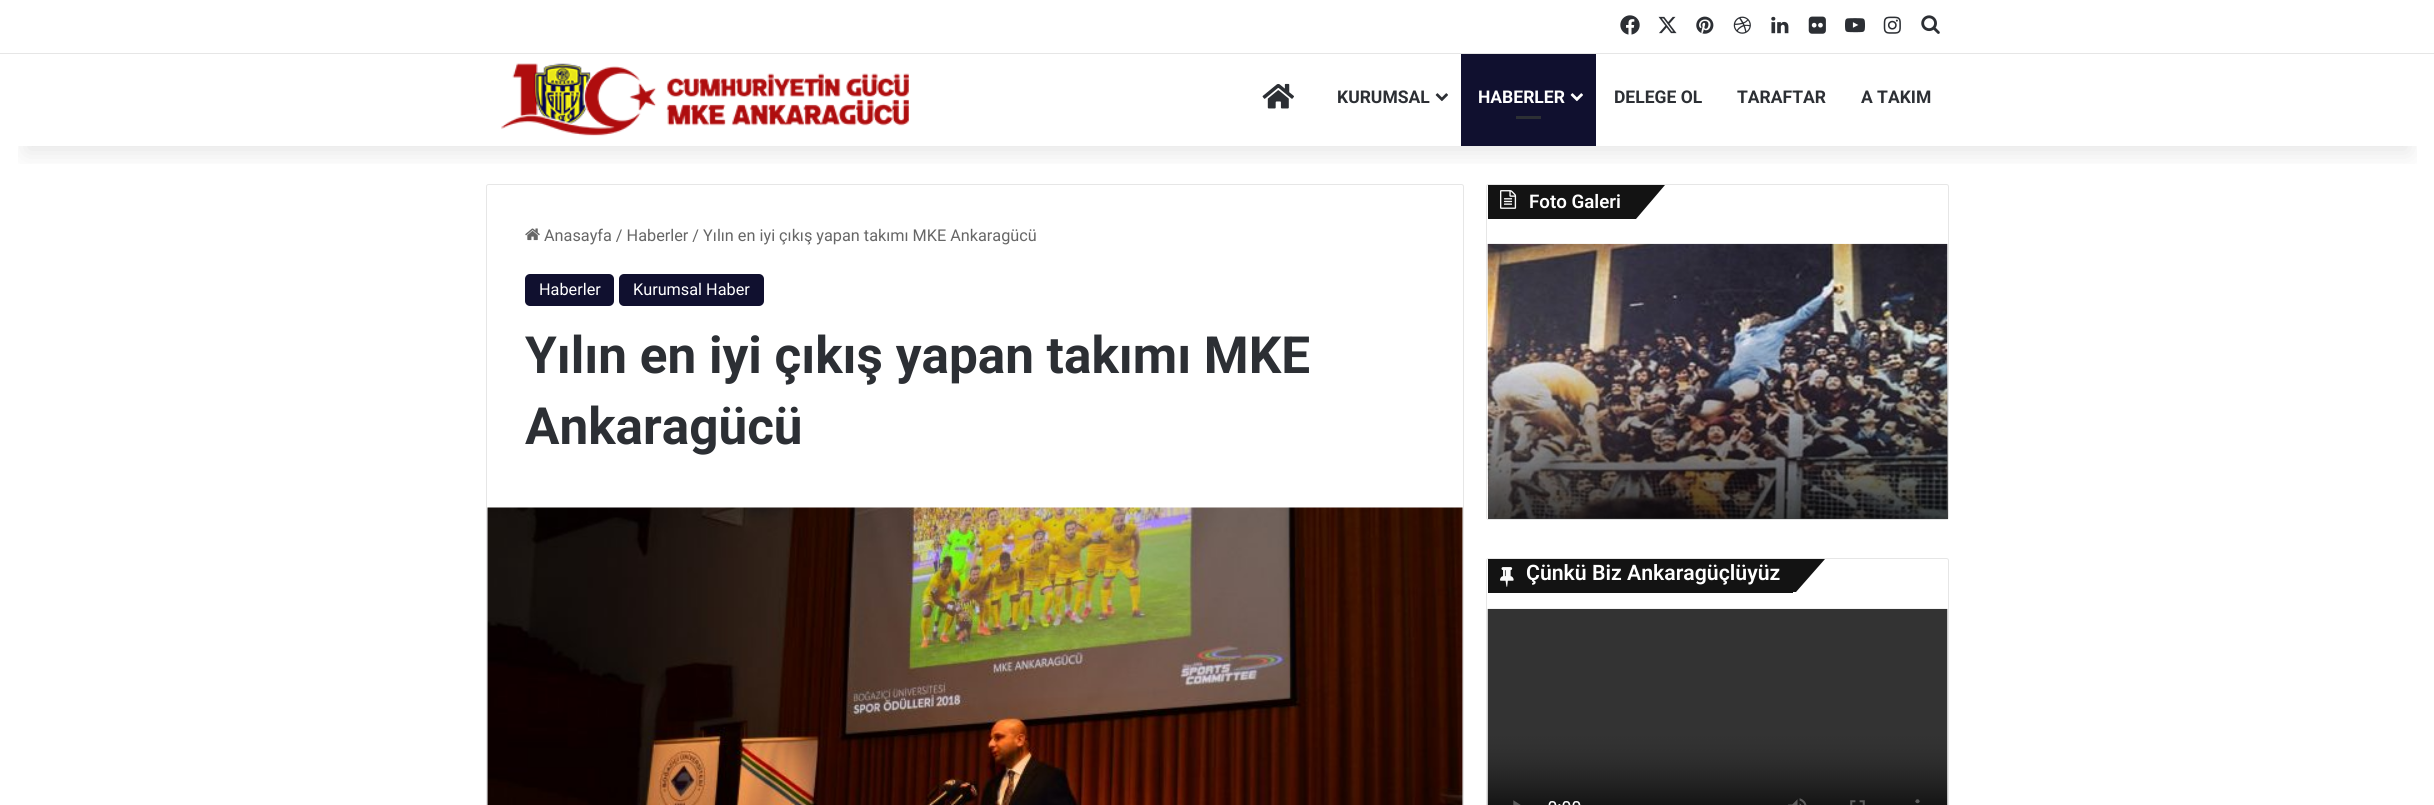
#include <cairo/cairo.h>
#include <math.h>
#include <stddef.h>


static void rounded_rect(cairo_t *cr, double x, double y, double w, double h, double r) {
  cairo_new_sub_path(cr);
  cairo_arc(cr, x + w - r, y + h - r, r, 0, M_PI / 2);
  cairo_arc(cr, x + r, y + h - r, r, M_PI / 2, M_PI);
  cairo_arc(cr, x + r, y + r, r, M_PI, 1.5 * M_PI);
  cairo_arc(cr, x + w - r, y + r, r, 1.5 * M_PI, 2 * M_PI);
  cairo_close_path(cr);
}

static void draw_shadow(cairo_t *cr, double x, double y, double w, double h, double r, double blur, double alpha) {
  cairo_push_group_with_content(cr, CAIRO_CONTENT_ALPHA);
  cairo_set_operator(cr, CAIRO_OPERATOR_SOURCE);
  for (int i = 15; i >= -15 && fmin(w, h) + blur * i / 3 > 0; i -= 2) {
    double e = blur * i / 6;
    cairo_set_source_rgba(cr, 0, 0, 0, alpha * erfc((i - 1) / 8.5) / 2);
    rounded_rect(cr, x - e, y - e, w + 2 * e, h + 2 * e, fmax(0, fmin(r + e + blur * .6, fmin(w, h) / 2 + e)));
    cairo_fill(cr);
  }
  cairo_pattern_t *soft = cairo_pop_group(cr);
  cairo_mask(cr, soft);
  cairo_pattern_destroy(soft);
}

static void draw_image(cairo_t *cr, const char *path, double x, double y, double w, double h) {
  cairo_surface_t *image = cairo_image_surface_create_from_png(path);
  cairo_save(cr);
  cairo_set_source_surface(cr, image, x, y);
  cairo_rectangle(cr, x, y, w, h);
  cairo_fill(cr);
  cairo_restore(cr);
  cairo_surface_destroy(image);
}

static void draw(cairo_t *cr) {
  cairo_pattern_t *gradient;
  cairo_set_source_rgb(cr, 1, 1, 1);
  cairo_paint(cr);
  rounded_rect(cr, 486.5, 184.5, 977, 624, 2);
  cairo_set_source_rgb(cr, 230 / 255.0, 230 / 255.0, 230 / 255.0);
  cairo_set_line_width(cr, 1);
  cairo_stroke(cr);
  rounded_rect(cr, 1486.5, 184.5, 462, 335, 2);
  cairo_stroke(cr);
  cairo_set_source_rgb(cr, 19 / 255.0, 19 / 255.0, 19 / 255.0);
  cairo_rectangle(cr, 1488, 185, 75, 34);
  cairo_fill(cr);
  cairo_new_path(cr);
  cairo_move_to(cr, 1563, 185);
  cairo_line_to(cr, 1665, 185);
  cairo_line_to(cr, 1636, 219);
  cairo_line_to(cr, 1535, 219);
  cairo_close_path(cr);
  cairo_fill(cr);
  draw_image(cr, "images/16.png", 1500, 190, 17, 19);
  cairo_save(cr);
  cairo_rectangle(cr, 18, 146, 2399, 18);
  cairo_clip(cr);
  cairo_set_source_rgb(cr, 0, 0, 0);
  draw_shadow(cr, 25, 56, 2385, 97, 0, 12.5, 0.1);
  cairo_restore(cr);
  cairo_set_source_rgb(cr, 230 / 255.0, 230 / 255.0, 230 / 255.0);
  cairo_rectangle(cr, 0, 53, 2434, 1);
  cairo_fill(cr);
  draw_image(cr, "images/1.png", 1620, 15, 20, 20);
  draw_image(cr, "images/2.png", 1658, 16, 19, 18);
  draw_image(cr, "images/3.png", 1696, 16, 18, 18);
  draw_image(cr, "images/4.png", 1733, 16, 18, 18);
  draw_image(cr, "images/5.png", 1771, 16, 18, 18);
  draw_image(cr, "images/6.png", 1808, 16, 18, 18);
  draw_image(cr, "images/7.png", 1845, 18, 20, 15);
  draw_image(cr, "images/8.png", 1883, 16, 18, 18);
  draw_image(cr, "images/9.png", 1921, 15, 19, 19);
  draw_image(cr, "images/10.png", 501, 63, 408, 73);
  draw_image(cr, "images/11.png", 1262, 83, 32, 26);
  draw_image(cr, "images/12.png", 1435, 93, 13, 9);
  cairo_set_source_rgb(cr, 16 / 255.0, 16 / 255.0, 47 / 255.0);
  cairo_rectangle(cr, 1461, 54, 135, 92);
  cairo_fill(cr);
  draw_image(cr, "images/13.png", 1570, 93, 13, 9);
  cairo_set_source_rgb(cr, 44 / 255.0, 47 / 255.0, 52 / 255.0);
  cairo_rectangle(cr, 1516, 116, 25, 3);
  cairo_fill(cr);
  draw_image(cr, "images/14.png", 525, 228, 15, 13);
  cairo_set_source_rgb(cr, 16 / 255.0, 16 / 255.0, 47 / 255.0);
  rounded_rect(cr, 525, 274, 89, 32, 5);
  cairo_fill(cr);
  rounded_rect(cr, 619, 274, 145, 32, 5);
  cairo_fill(cr);
  draw_image(cr, "images/15.png", 487, 507, 976, 298);
  draw_image(cr, "images/17.png", 1487, 243, 461, 276);
  gradient = cairo_pattern_create_linear(1718, 340, 1718, 519);
  cairo_pattern_add_color_stop_rgba(gradient, 0, 0, 0, 0, 0);
  cairo_pattern_add_color_stop_rgba(gradient, 1, 0, 0, 0, 0.75);
  cairo_set_source(cr, gradient);
  cairo_pattern_destroy(gradient);
  cairo_rectangle(cr, 1488, 345, 460, 174);
  cairo_fill(cr);
  rounded_rect(cr, 1486.5, 558.5, 462, 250, 2);
  cairo_set_source_rgb(cr, 230 / 255.0, 230 / 255.0, 230 / 255.0);
  cairo_stroke(cr);
  cairo_set_source_rgb(cr, 19 / 255.0, 19 / 255.0, 19 / 255.0);
  cairo_rectangle(cr, 1488, 559, 305, 34);
  cairo_fill(cr);
  cairo_new_path(cr);
  cairo_move_to(cr, 1611, 559);
  cairo_line_to(cr, 1825, 559);
  cairo_line_to(cr, 1796, 592);
  cairo_line_to(cr, 1583, 592);
  cairo_close_path(cr);
  cairo_fill(cr);
  draw_image(cr, "images/18.png", 1500, 567, 14, 20);
  draw_image(cr, "images/19.png", 1487, 608, 461, 197);
  cairo_select_font_face(cr, "Roboto", CAIRO_FONT_SLANT_NORMAL, CAIRO_FONT_WEIGHT_BOLD);
  cairo_set_font_size(cr, 17.5);
  cairo_set_source_rgb(cr, 44 / 255.0, 47 / 255.0, 52 / 255.0);
  cairo_move_to(cr, 1337, 103);
  cairo_show_text(cr, "KURUMSAL");
  cairo_set_source_rgb(cr, 1, 1, 1);
  cairo_move_to(cr, 1478, 103);
  cairo_show_text(cr, "HABERLER");
  cairo_set_source_rgb(cr, 44 / 255.0, 47 / 255.0, 52 / 255.0);
  cairo_move_to(cr, 1614, 103);
  cairo_show_text(cr, "DELEGE OL");
  cairo_move_to(cr, 1737, 103);
  cairo_show_text(cr, "TARAFTAR");
  cairo_move_to(cr, 1861, 103);
  cairo_show_text(cr, "A TAKIM");
  cairo_select_font_face(cr, "Roboto", CAIRO_FONT_SLANT_NORMAL, CAIRO_FONT_WEIGHT_NORMAL);
  cairo_set_font_size(cr, 16.25);
  cairo_set_source_rgb(cr, 102 / 255.0, 102 / 255.0, 102 / 255.0);
  cairo_move_to(cr, 544, 241);
  cairo_show_text(cr, "Anasayfa / Haberler / Yılın en iyi çıkış yapan takımı MKE Ankaragücü");
  cairo_set_source_rgb(cr, 1, 1, 1);
  cairo_move_to(cr, 539, 295);
  cairo_show_text(cr, "Haberler");
  cairo_move_to(cr, 633, 295);
  cairo_show_text(cr, "Kurumsal Haber");
  cairo_select_font_face(cr, "Roboto", CAIRO_FONT_SLANT_NORMAL, CAIRO_FONT_WEIGHT_BOLD);
  cairo_set_font_size(cr, 51.25);
  cairo_set_source_rgb(cr, 44 / 255.0, 47 / 255.0, 52 / 255.0);
  cairo_move_to(cr, 525, 373);
  cairo_show_text(cr, "Yılın en iyi çıkış yapan takımı MKE");
  cairo_move_to(cr, 525, 444);
  cairo_show_text(cr, "Ankaragücü");
  cairo_select_font_face(cr, "Roboto SemiBold", CAIRO_FONT_SLANT_NORMAL, CAIRO_FONT_WEIGHT_NORMAL);
  cairo_set_font_size(cr, 18.75);
  cairo_set_source_rgb(cr, 1, 1, 1);
  cairo_move_to(cr, 1529, 208);
  cairo_show_text(cr, "Foto Galeri");
  cairo_set_font_size(cr, 21.25);
  cairo_move_to(cr, 1526, 580);
  cairo_show_text(cr, "Çünkü Biz Ankaragüçlüyüz");
}

int main(void) {
  cairo_surface_t *surface = cairo_image_surface_create(CAIRO_FORMAT_RGB24, 2434, 805);
  cairo_t *cr = cairo_create(surface);
  cairo_font_options_t *options = cairo_font_options_create();
  cairo_font_options_set_hint_metrics(options, CAIRO_HINT_METRICS_OFF);
  cairo_font_options_set_hint_style(options, CAIRO_HINT_STYLE_NONE);
  cairo_set_font_options(cr, options);
  cairo_set_miter_limit(cr, 4);
  draw(cr);
  cairo_surface_write_to_png(surface, "out.png");
  cairo_font_options_destroy(options);
  cairo_destroy(cr);
  cairo_surface_destroy(surface);
  return 0;
}
